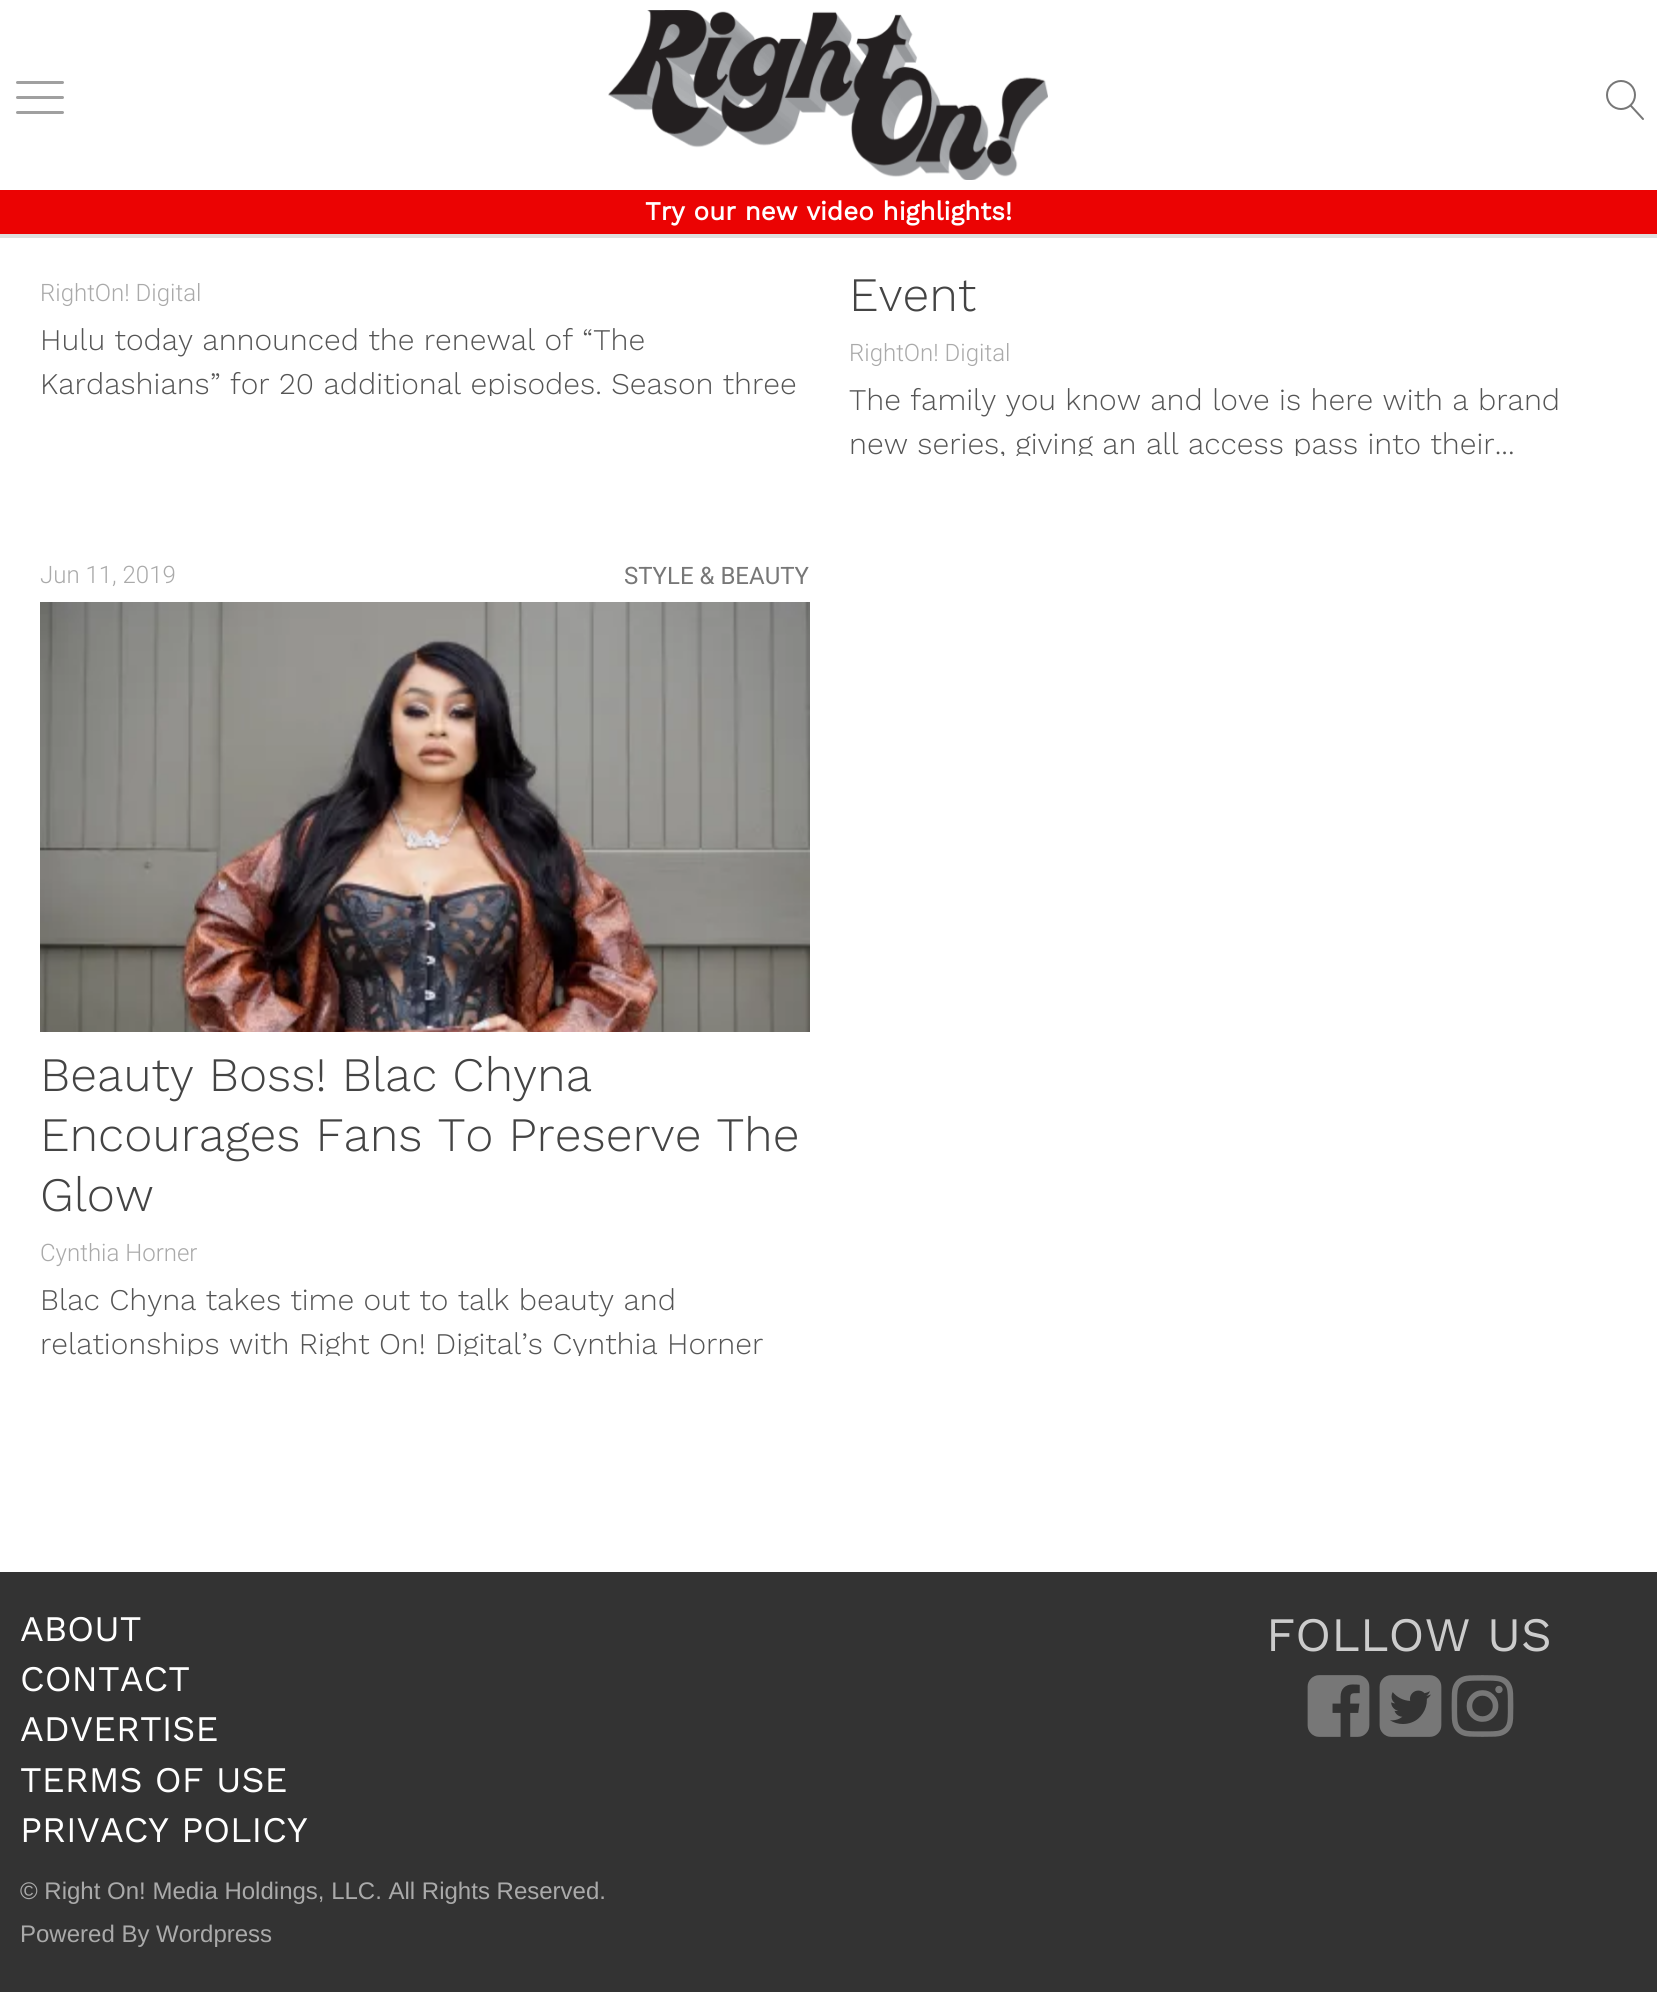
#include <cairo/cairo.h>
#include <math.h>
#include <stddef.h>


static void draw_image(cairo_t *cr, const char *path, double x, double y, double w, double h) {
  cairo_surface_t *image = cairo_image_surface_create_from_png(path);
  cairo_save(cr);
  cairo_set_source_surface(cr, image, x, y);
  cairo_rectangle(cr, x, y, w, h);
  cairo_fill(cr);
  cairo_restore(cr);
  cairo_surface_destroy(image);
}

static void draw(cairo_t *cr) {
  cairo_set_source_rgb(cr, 1, 1, 1);
  cairo_paint(cr);
  cairo_set_source_rgb(cr, 223 / 255.0, 223 / 255.0, 223 / 255.0);
  cairo_rectangle(cr, 0, 234, 1657, 4);
  cairo_fill(cr);
  draw_image(cr, "images/1.png", 16, 81, 48, 33);
  draw_image(cr, "images/2.png", 608, 10, 440, 170);
  draw_image(cr, "images/3.png", 1606, 80, 38, 40);
  cairo_set_source_rgb(cr, 235 / 255.0, 3 / 255.0, 3 / 255.0);
  cairo_rectangle(cr, 0, 190, 1657, 44);
  cairo_fill(cr);
  draw_image(cr, "images/4.png", 40, 602, 770, 430);
  cairo_set_source_rgb(cr, 51 / 255.0, 51 / 255.0, 51 / 255.0);
  cairo_rectangle(cr, 0, 1572, 1657, 420);
  cairo_fill(cr);
  draw_image(cr, "images/5.png", 1307, 1675, 63, 62);
  draw_image(cr, "images/6.png", 1379, 1675, 63, 62);
  draw_image(cr, "images/7.png", 1451, 1675, 63, 62);
  cairo_select_font_face(cr, "Work Sans", CAIRO_FONT_SLANT_NORMAL, CAIRO_FONT_WEIGHT_BOLD);
  cairo_set_font_size(cr, 26);
  cairo_set_source_rgb(cr, 1, 1, 1);
  cairo_move_to(cr, 645, 220);
  cairo_show_text(cr, "Try our new video highlights!");
  cairo_select_font_face(cr, "Roboto Light", CAIRO_FONT_SLANT_NORMAL, CAIRO_FONT_WEIGHT_NORMAL);
  cairo_set_font_size(cr, 24);
  cairo_set_source_rgb(cr, 170 / 255.0, 170 / 255.0, 170 / 255.0);
  cairo_move_to(cr, 40, 301);
  cairo_show_text(cr, "RightOn! Digital");
  cairo_select_font_face(cr, "Work Sans Light", CAIRO_FONT_SLANT_NORMAL, CAIRO_FONT_WEIGHT_NORMAL);
  cairo_set_font_size(cr, 30);
  cairo_set_source_rgb(cr, 85 / 255.0, 85 / 255.0, 85 / 255.0);
  cairo_move_to(cr, 40, 350);
  cairo_show_text(cr, "Hulu today announced the renewal of “The");
  cairo_save(cr);
  cairo_rectangle(cr, 40, 320, 770, 76);
  cairo_clip(cr);
  cairo_move_to(cr, 40, 394);
  cairo_show_text(cr, "Kardashians” for 20 additional episodes. Season three");
  cairo_restore(cr);
  cairo_set_font_size(cr, 48);
  cairo_set_source_rgb(cr, 68 / 255.0, 68 / 255.0, 68 / 255.0);
  cairo_move_to(cr, 849, 311);
  cairo_show_text(cr, "Event");
  cairo_select_font_face(cr, "Roboto Light", CAIRO_FONT_SLANT_NORMAL, CAIRO_FONT_WEIGHT_NORMAL);
  cairo_set_font_size(cr, 24);
  cairo_set_source_rgb(cr, 170 / 255.0, 170 / 255.0, 170 / 255.0);
  cairo_move_to(cr, 849, 361);
  cairo_show_text(cr, "RightOn! Digital");
  cairo_select_font_face(cr, "Work Sans Light", CAIRO_FONT_SLANT_NORMAL, CAIRO_FONT_WEIGHT_NORMAL);
  cairo_set_font_size(cr, 30);
  cairo_set_source_rgb(cr, 85 / 255.0, 85 / 255.0, 85 / 255.0);
  cairo_move_to(cr, 849, 410);
  cairo_show_text(cr, "The family you know and love is here with a brand");
  cairo_save(cr);
  cairo_rectangle(cr, 850, 380, 768, 76);
  cairo_clip(cr);
  cairo_move_to(cr, 849, 454);
  cairo_show_text(cr, "new series, giving an all access pass into their...");
  cairo_restore(cr);
  cairo_select_font_face(cr, "Roboto Light", CAIRO_FONT_SLANT_NORMAL, CAIRO_FONT_WEIGHT_NORMAL);
  cairo_set_font_size(cr, 24);
  cairo_set_source_rgb(cr, 170 / 255.0, 170 / 255.0, 170 / 255.0);
  cairo_move_to(cr, 40, 583);
  cairo_show_text(cr, "Jun 11, 2019");
  cairo_select_font_face(cr, "Roboto", CAIRO_FONT_SLANT_NORMAL, CAIRO_FONT_WEIGHT_NORMAL);
  cairo_set_source_rgb(cr, 119 / 255.0, 119 / 255.0, 119 / 255.0);
  cairo_move_to(cr, 624, 584);
  cairo_show_text(cr, "STYLE & BEAUTY");
  cairo_select_font_face(cr, "Work Sans Light", CAIRO_FONT_SLANT_NORMAL, CAIRO_FONT_WEIGHT_NORMAL);
  cairo_set_font_size(cr, 48);
  cairo_set_source_rgb(cr, 68 / 255.0, 68 / 255.0, 68 / 255.0);
  cairo_move_to(cr, 40, 1091);
  cairo_show_text(cr, "Beauty Boss! Blac Chyna");
  cairo_move_to(cr, 40, 1151);
  cairo_show_text(cr, "Encourages Fans To Preserve The");
  cairo_move_to(cr, 40, 1211);
  cairo_show_text(cr, "Glow");
  cairo_select_font_face(cr, "Roboto Light", CAIRO_FONT_SLANT_NORMAL, CAIRO_FONT_WEIGHT_NORMAL);
  cairo_set_font_size(cr, 24);
  cairo_set_source_rgb(cr, 170 / 255.0, 170 / 255.0, 170 / 255.0);
  cairo_move_to(cr, 40, 1261);
  cairo_show_text(cr, "Cynthia Horner");
  cairo_select_font_face(cr, "Work Sans Light", CAIRO_FONT_SLANT_NORMAL, CAIRO_FONT_WEIGHT_NORMAL);
  cairo_set_font_size(cr, 30);
  cairo_set_source_rgb(cr, 85 / 255.0, 85 / 255.0, 85 / 255.0);
  cairo_move_to(cr, 40, 1310);
  cairo_show_text(cr, "Blac Chyna takes time out to talk beauty and");
  cairo_save(cr);
  cairo_rectangle(cr, 40, 1280, 770, 76);
  cairo_clip(cr);
  cairo_move_to(cr, 40, 1354);
  cairo_show_text(cr, "relationships with Right On! Digital’s Cynthia Horner");
  cairo_restore(cr);
  cairo_select_font_face(cr, "Work Sans", CAIRO_FONT_SLANT_NORMAL, CAIRO_FONT_WEIGHT_NORMAL);
  cairo_set_font_size(cr, 36);
  cairo_set_source_rgb(cr, 1, 1, 1);
  cairo_move_to(cr, 20, 1641);
  cairo_show_text(cr, "ABOUT");
  cairo_move_to(cr, 20, 1691);
  cairo_show_text(cr, "CONTACT");
  cairo_move_to(cr, 20, 1741);
  cairo_show_text(cr, "ADVERTISE");
  cairo_move_to(cr, 20, 1792);
  cairo_show_text(cr, "TERMS OF USE");
  cairo_move_to(cr, 20, 1842);
  cairo_show_text(cr, "PRIVACY POLICY");
  cairo_select_font_face(cr, "Liberation Sans", CAIRO_FONT_SLANT_NORMAL, CAIRO_FONT_WEIGHT_NORMAL);
  cairo_set_font_size(cr, 24);
  cairo_set_source_rgb(cr, 170 / 255.0, 170 / 255.0, 170 / 255.0);
  cairo_move_to(cr, 20, 1899);
  cairo_show_text(cr, "© Right On! Media Holdings, LLC. All Rights Reserved.");
  cairo_move_to(cr, 20, 1942);
  cairo_show_text(cr, "Powered By Wordpress");
  cairo_select_font_face(cr, "Work Sans", CAIRO_FONT_SLANT_NORMAL, CAIRO_FONT_WEIGHT_NORMAL);
  cairo_set_font_size(cr, 48);
  cairo_set_source_rgb(cr, 204 / 255.0, 204 / 255.0, 204 / 255.0);
  cairo_move_to(cr, 1266, 1651);
  cairo_show_text(cr, "FOLLOW US");
}

int main(void) {
  cairo_surface_t *surface = cairo_image_surface_create(CAIRO_FORMAT_RGB24, 1657, 2004);
  cairo_t *cr = cairo_create(surface);
  cairo_font_options_t *options = cairo_font_options_create();
  cairo_font_options_set_hint_metrics(options, CAIRO_HINT_METRICS_OFF);
  cairo_font_options_set_hint_style(options, CAIRO_HINT_STYLE_NONE);
  cairo_set_font_options(cr, options);
  cairo_set_miter_limit(cr, 4);
  draw(cr);
  cairo_surface_write_to_png(surface, "out.png");
  cairo_font_options_destroy(options);
  cairo_destroy(cr);
  cairo_surface_destroy(surface);
  return 0;
}
